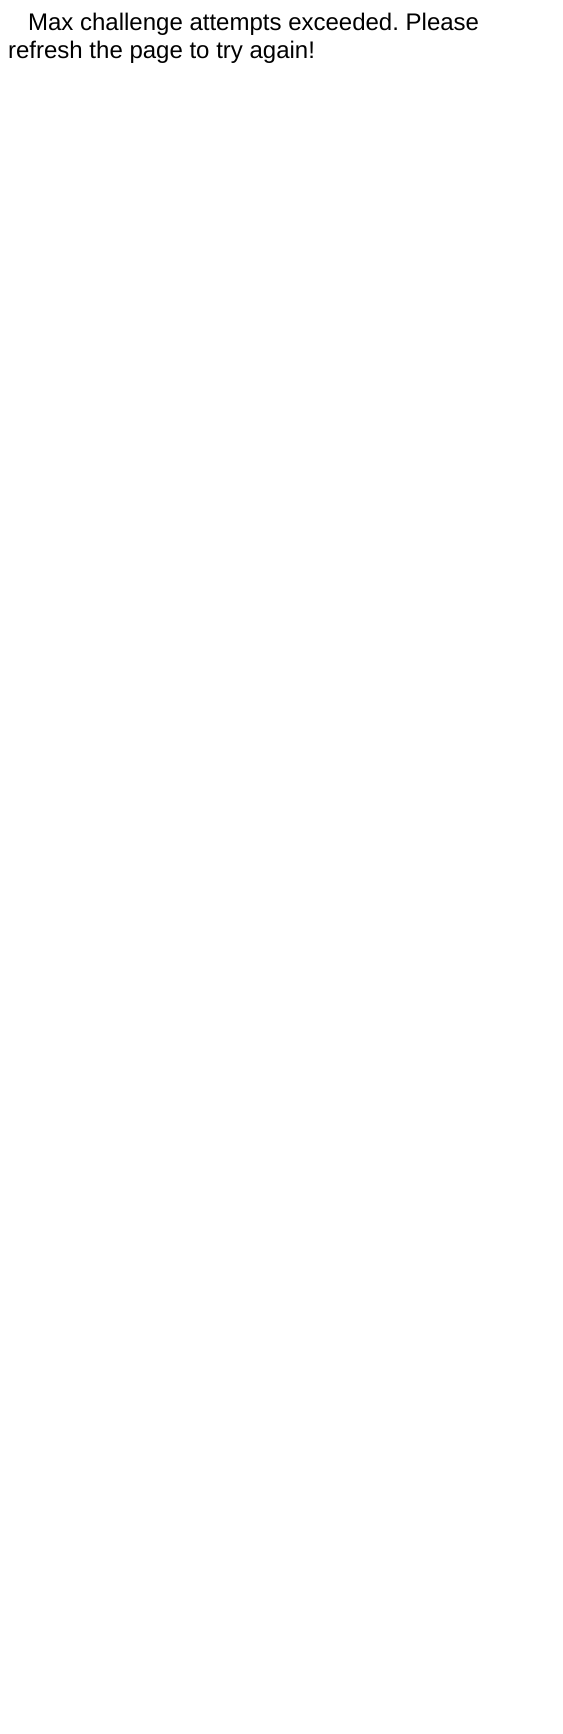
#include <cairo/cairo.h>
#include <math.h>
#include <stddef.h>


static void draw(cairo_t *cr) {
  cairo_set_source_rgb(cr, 1, 1, 1);
  cairo_paint(cr);
  cairo_select_font_face(cr, "Liberation Sans", CAIRO_FONT_SLANT_NORMAL, CAIRO_FONT_WEIGHT_NORMAL);
  cairo_set_font_size(cr, 24);
  cairo_set_source_rgb(cr, 0, 0, 0);
  cairo_move_to(cr, 28, 30);
  cairo_show_text(cr, "Max challenge attempts exceeded. Please");
  cairo_move_to(cr, 8, 58);
  cairo_show_text(cr, "refresh the page to try again!");
}

int main(void) {
  cairo_surface_t *surface = cairo_image_surface_create(CAIRO_FORMAT_RGB24, 563, 1734);
  cairo_t *cr = cairo_create(surface);
  cairo_font_options_t *options = cairo_font_options_create();
  cairo_font_options_set_hint_metrics(options, CAIRO_HINT_METRICS_OFF);
  cairo_font_options_set_hint_style(options, CAIRO_HINT_STYLE_NONE);
  cairo_set_font_options(cr, options);
  cairo_set_miter_limit(cr, 4);
  draw(cr);
  cairo_surface_write_to_png(surface, "out.png");
  cairo_font_options_destroy(options);
  cairo_destroy(cr);
  cairo_surface_destroy(surface);
  return 0;
}
